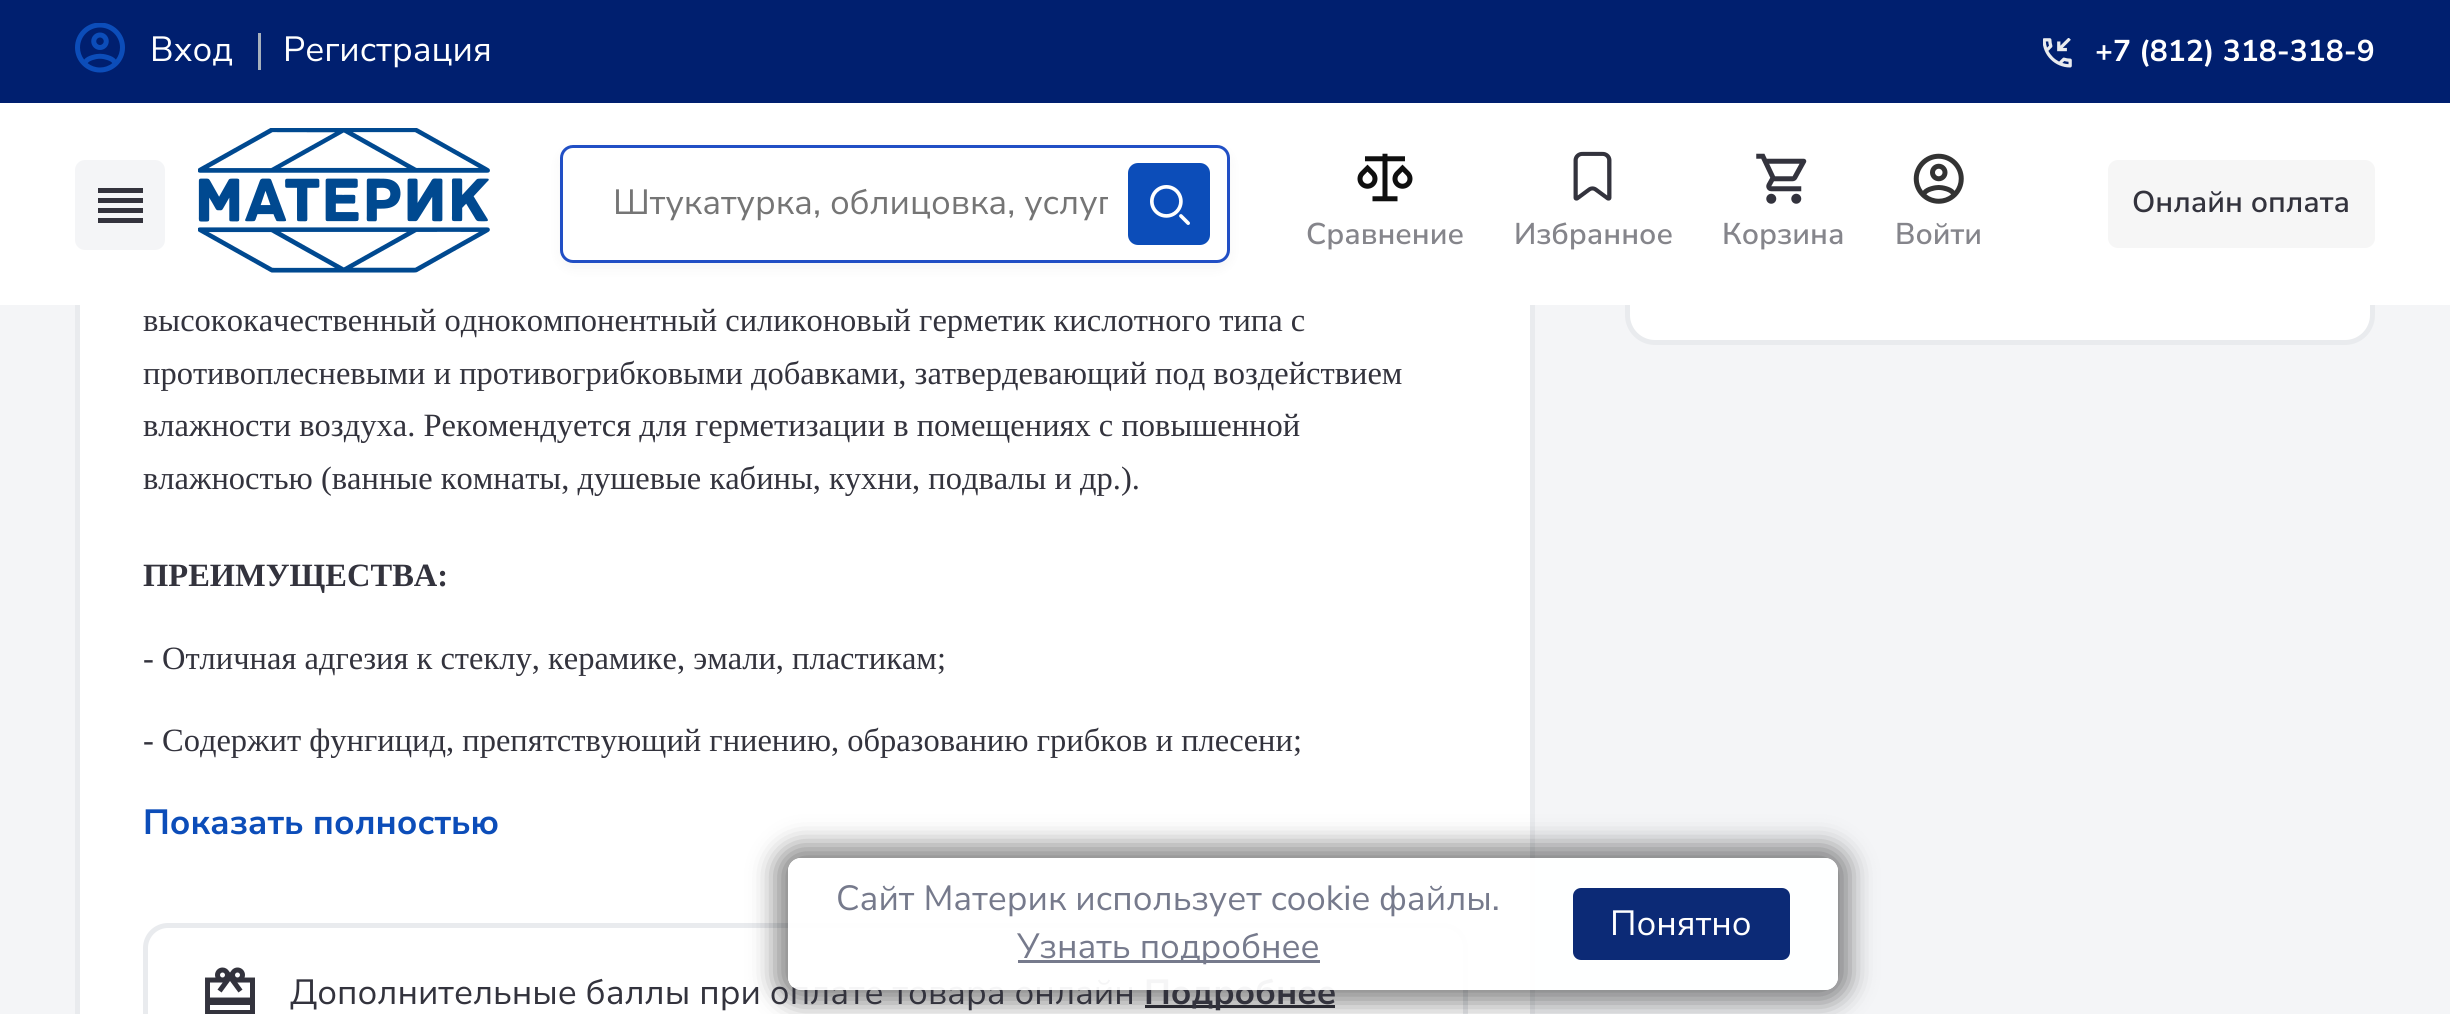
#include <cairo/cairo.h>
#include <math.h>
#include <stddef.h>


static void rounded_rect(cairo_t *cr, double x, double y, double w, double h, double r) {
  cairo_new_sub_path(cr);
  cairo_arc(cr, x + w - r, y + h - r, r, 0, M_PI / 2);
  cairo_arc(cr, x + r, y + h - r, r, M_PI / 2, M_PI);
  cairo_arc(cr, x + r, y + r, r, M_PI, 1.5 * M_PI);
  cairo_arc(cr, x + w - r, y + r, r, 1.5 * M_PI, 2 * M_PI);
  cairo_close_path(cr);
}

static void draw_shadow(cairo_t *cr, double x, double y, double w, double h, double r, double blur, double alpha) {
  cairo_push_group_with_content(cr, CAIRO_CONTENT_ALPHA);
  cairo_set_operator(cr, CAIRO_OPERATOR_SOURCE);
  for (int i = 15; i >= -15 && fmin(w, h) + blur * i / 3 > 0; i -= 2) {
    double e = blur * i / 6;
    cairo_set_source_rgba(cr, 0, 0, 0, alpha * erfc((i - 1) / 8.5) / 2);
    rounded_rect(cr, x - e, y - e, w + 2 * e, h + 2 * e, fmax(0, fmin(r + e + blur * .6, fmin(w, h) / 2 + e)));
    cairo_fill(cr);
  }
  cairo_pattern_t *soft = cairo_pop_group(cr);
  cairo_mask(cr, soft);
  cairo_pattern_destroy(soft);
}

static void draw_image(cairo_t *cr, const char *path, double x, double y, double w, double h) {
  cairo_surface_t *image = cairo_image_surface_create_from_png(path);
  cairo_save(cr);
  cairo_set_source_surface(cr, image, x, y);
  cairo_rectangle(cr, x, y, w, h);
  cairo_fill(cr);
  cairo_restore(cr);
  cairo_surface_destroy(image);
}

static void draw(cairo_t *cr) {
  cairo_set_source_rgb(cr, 244 / 255.0, 245 / 255.0, 247 / 255.0);
  cairo_paint(cr);
  cairo_set_source_rgb(cr, 1, 1, 1);
  rounded_rect(cr, 1627.5, -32.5, 745, 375, 27.5);
  cairo_fill_preserve(cr);
  cairo_set_source_rgb(cr, 233 / 255.0, 235 / 255.0, 238 / 255.0);
  cairo_set_line_width(cr, 5);
  cairo_stroke(cr);
  cairo_set_source_rgb(cr, 1, 1, 1);
  cairo_rectangle(cr, 80, 305, 1450, 709);
  cairo_fill(cr);
  cairo_rectangle(cr, 77.5, -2.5, 1455, 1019);
  cairo_set_source_rgb(cr, 233 / 255.0, 235 / 255.0, 238 / 255.0);
  cairo_stroke(cr);
  cairo_set_source_rgb(cr, 0, 31 / 255.0, 111 / 255.0);
  cairo_rectangle(cr, 0, 0, 2450, 103);
  cairo_fill(cr);
  draw_image(cr, "images/1.png", 75, 23, 50, 50);
  cairo_set_source_rgb(cr, 166 / 255.0, 176 / 255.0, 188 / 255.0);
  cairo_rectangle(cr, 258, 33, 3, 37);
  cairo_fill(cr);
  draw_image(cr, "images/2.png", 2043, 38, 29, 30);
  cairo_set_source_rgb(cr, 1, 1, 1);
  cairo_rectangle(cr, 0, 103, 2450, 202);
  cairo_fill(cr);
  cairo_set_source_rgb(cr, 244 / 255.0, 245 / 255.0, 247 / 255.0);
  rounded_rect(cr, 75, 160, 90, 90, 10);
  cairo_fill(cr);
  cairo_set_source_rgb(cr, 51 / 255.0, 51 / 255.0, 61 / 255.0);
  cairo_rectangle(cr, 98, 188, 45, 5);
  cairo_fill(cr);
  cairo_rectangle(cr, 98, 198, 45, 5);
  cairo_fill(cr);
  cairo_rectangle(cr, 98, 208, 45, 5);
  cairo_fill(cr);
  cairo_rectangle(cr, 98, 218, 45, 5);
  cairo_fill(cr);
  draw_image(cr, "images/3.png", 198, 128, 292, 145);
  cairo_set_source_rgb(cr, 0, 0, 0);
  draw_shadow(cr, 560, 150, 670, 118, 13, 7.5, 0.04);
  cairo_set_source_rgb(cr, 1, 1, 1);
  rounded_rect(cr, 561.5, 146.5, 667, 115, 11.5);
  cairo_fill_preserve(cr);
  cairo_set_source_rgb(cr, 33 / 255.0, 79 / 255.0, 197 / 255.0);
  cairo_set_line_width(cr, 3);
  cairo_stroke(cr);
  cairo_set_source_rgb(cr, 12 / 255.0, 77 / 255.0, 185 / 255.0);
  rounded_rect(cr, 1128, 163, 82, 82, 10);
  cairo_fill(cr);
  draw_image(cr, "images/4.png", 1150, 185, 40, 40);
  cairo_set_source_rgb(cr, 246 / 255.0, 246 / 255.0, 246 / 255.0);
  rounded_rect(cr, 2108, 160, 267, 88, 10);
  cairo_fill(cr);
  draw_image(cr, "images/5.png", 1357, 153, 56, 49);
  draw_image(cr, "images/6.png", 1573, 151, 39, 50);
  draw_image(cr, "images/7.png", 1756, 153, 51, 51);
  draw_image(cr, "images/8.png", 1913, 153, 51, 51);
  rounded_rect(cr, 145.5, 925.5, 1320, 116, 22.5);
  cairo_set_source_rgb(cr, 233 / 255.0, 235 / 255.0, 238 / 255.0);
  cairo_set_line_width(cr, 5);
  cairo_stroke(cr);
  draw_image(cr, "images/9.png", 205, 967, 50, 47);
  cairo_set_source_rgb(cr, 51 / 255.0, 51 / 255.0, 61 / 255.0);
  cairo_rectangle(cr, 1145, 1005, 190, 3);
  cairo_fill(cr);
  cairo_save(cr);
  cairo_set_fill_rule(cr, CAIRO_FILL_RULE_EVEN_ODD);
  cairo_new_path(cr);
  cairo_move_to(cr, 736, 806);
  cairo_line_to(cr, 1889, 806);
  cairo_line_to(cr, 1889, 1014);
  cairo_line_to(cr, 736, 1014);
  cairo_close_path(cr);
  cairo_move_to(cr, 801, 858);
  cairo_line_to(cr, 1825, 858);
  cairo_curve_to(cr, 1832, 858, 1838, 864, 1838, 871);
  cairo_line_to(cr, 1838, 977);
  cairo_curve_to(cr, 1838, 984, 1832, 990, 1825, 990);
  cairo_line_to(cr, 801, 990);
  cairo_curve_to(cr, 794, 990, 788, 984, 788, 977);
  cairo_line_to(cr, 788, 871);
  cairo_curve_to(cr, 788, 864, 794, 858, 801, 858);
  cairo_close_path(cr);
  cairo_clip(cr);
  cairo_set_source_rgb(cr, 0, 0, 0);
  draw_shadow(cr, 775, 845, 1075, 158, 25, 12.5, 0.47);
  cairo_restore(cr);
  cairo_select_font_face(cr, "Nunito Sans", CAIRO_FONT_SLANT_NORMAL, CAIRO_FONT_WEIGHT_NORMAL);
  cairo_set_font_size(cr, 35);
  cairo_set_source_rgb(cr, 1, 1, 1);
  cairo_move_to(cr, 150, 61);
  cairo_show_text(cr, "Вход");
  cairo_move_to(cr, 283, 61);
  cairo_show_text(cr, "Регистрация");
  cairo_select_font_face(cr, "Nunito Sans", CAIRO_FONT_SLANT_NORMAL, CAIRO_FONT_WEIGHT_BOLD);
  cairo_set_font_size(cr, 30);
  cairo_move_to(cr, 2095, 61);
  cairo_show_text(cr, "+7 (812) 318-318-9");
  cairo_save(cr);
  cairo_rectangle(cr, 613, 180, 495, 48);
  cairo_clip(cr);
  cairo_select_font_face(cr, "Nunito Sans", CAIRO_FONT_SLANT_NORMAL, CAIRO_FONT_WEIGHT_NORMAL);
  cairo_set_font_size(cr, 35);
  cairo_set_source_rgb(cr, 117 / 255.0, 117 / 255.0, 117 / 255.0);
  cairo_move_to(cr, 613, 214);
  cairo_show_text(cr, "Штукатурка, облицовка, услуг");
  cairo_restore(cr);
  cairo_select_font_face(cr, "Nunito Sans SemiBold", CAIRO_FONT_SLANT_NORMAL, CAIRO_FONT_WEIGHT_NORMAL);
  cairo_set_source_rgb(cr, 51 / 255.0, 51 / 255.0, 61 / 255.0);
  cairo_move_to(cr, 2132, 212);
  cairo_show_text(cr, "Онлайн оплата");
  cairo_set_source_rgb(cr, 133 / 255.0, 133 / 255.0, 139 / 255.0);
  cairo_move_to(cr, 1306, 244);
  cairo_show_text(cr, "Сравнение");
  cairo_move_to(cr, 1514, 244);
  cairo_show_text(cr, "Избранное");
  cairo_move_to(cr, 1722, 244);
  cairo_show_text(cr, "Корзина");
  cairo_move_to(cr, 1895, 244);
  cairo_show_text(cr, "Войти");
  cairo_select_font_face(cr, "Liberation Serif", CAIRO_FONT_SLANT_NORMAL, CAIRO_FONT_WEIGHT_NORMAL);
  cairo_set_font_size(cr, 32.5);
  cairo_set_source_rgb(cr, 51 / 255.0, 51 / 255.0, 61 / 255.0);
  cairo_move_to(cr, 143, 331);
  cairo_show_text(cr, "высококачественный однокомпонентный силиконовый герметик кислотного типа с");
  cairo_move_to(cr, 143, 384);
  cairo_show_text(cr, "противоплесневыми и противогрибковыми добавками, затвердевающий под воздействием");
  cairo_move_to(cr, 143, 436);
  cairo_show_text(cr, "влажности воздуха. Рекомендуется для герметизации в помещениях с повышенной");
  cairo_move_to(cr, 143, 489);
  cairo_show_text(cr, "влажностью (ванные комнаты, душевые кабины, кухни, подвалы и др.).");
  cairo_select_font_face(cr, "Liberation Serif", CAIRO_FONT_SLANT_NORMAL, CAIRO_FONT_WEIGHT_BOLD);
  cairo_move_to(cr, 143, 586);
  cairo_show_text(cr, "ПРЕИМУЩЕСТВА:");
  cairo_select_font_face(cr, "Liberation Serif", CAIRO_FONT_SLANT_NORMAL, CAIRO_FONT_WEIGHT_NORMAL);
  cairo_move_to(cr, 143, 669);
  cairo_show_text(cr, "- Отличная адгезия к стеклу, керамике, эмали, пластикам;");
  cairo_move_to(cr, 143, 751);
  cairo_show_text(cr, "- Содержит фунгицид, препятствующий гниению, образованию грибков и плесени;");
  cairo_select_font_face(cr, "Nunito Sans", CAIRO_FONT_SLANT_NORMAL, CAIRO_FONT_WEIGHT_BOLD);
  cairo_set_font_size(cr, 35);
  cairo_set_source_rgb(cr, 12 / 255.0, 77 / 255.0, 185 / 255.0);
  cairo_move_to(cr, 143, 834);
  cairo_show_text(cr, "Показать полностью");
  cairo_select_font_face(cr, "Nunito Sans", CAIRO_FONT_SLANT_NORMAL, CAIRO_FONT_WEIGHT_NORMAL);
  cairo_set_source_rgb(cr, 51 / 255.0, 51 / 255.0, 61 / 255.0);
  cairo_move_to(cr, 290, 1004);
  cairo_show_text(cr, "Дополнительные баллы при оплате товара онлайн");
  cairo_select_font_face(cr, "Nunito Sans", CAIRO_FONT_SLANT_NORMAL, CAIRO_FONT_WEIGHT_BOLD);
  cairo_move_to(cr, 1144, 1004);
  cairo_show_text(cr, "Подробнее");
  cairo_set_source_rgba(cr, 1, 1, 1, 0.95);
  rounded_rect(cr, 788, 858, 1050, 132, 13);
  cairo_fill(cr);
  cairo_select_font_face(cr, "Nunito Sans", CAIRO_FONT_SLANT_NORMAL, CAIRO_FONT_WEIGHT_NORMAL);
  cairo_set_source_rgb(cr, 118 / 255.0, 122 / 255.0, 140 / 255.0);
  cairo_move_to(cr, 836, 910);
  cairo_show_text(cr, "Сайт Материк использует cookie файлы.");
  cairo_rectangle(cr, 1018, 960, 302, 3);
  cairo_fill(cr);
  cairo_move_to(cr, 1017, 958);
  cairo_show_text(cr, "Узнать подробнее");
  cairo_set_source_rgb(cr, 12 / 255.0, 42 / 255.0, 118 / 255.0);
  rounded_rect(cr, 1573, 888, 217, 72, 8);
  cairo_fill(cr);
  cairo_set_source_rgb(cr, 1, 1, 1);
  cairo_move_to(cr, 1610, 935);
  cairo_show_text(cr, "Понятно");
}

int main(void) {
  cairo_surface_t *surface = cairo_image_surface_create(CAIRO_FORMAT_RGB24, 2450, 1014);
  cairo_t *cr = cairo_create(surface);
  cairo_font_options_t *options = cairo_font_options_create();
  cairo_font_options_set_hint_metrics(options, CAIRO_HINT_METRICS_OFF);
  cairo_font_options_set_hint_style(options, CAIRO_HINT_STYLE_NONE);
  cairo_set_font_options(cr, options);
  cairo_set_miter_limit(cr, 4);
  draw(cr);
  cairo_surface_write_to_png(surface, "out.png");
  cairo_font_options_destroy(options);
  cairo_destroy(cr);
  cairo_surface_destroy(surface);
  return 0;
}
